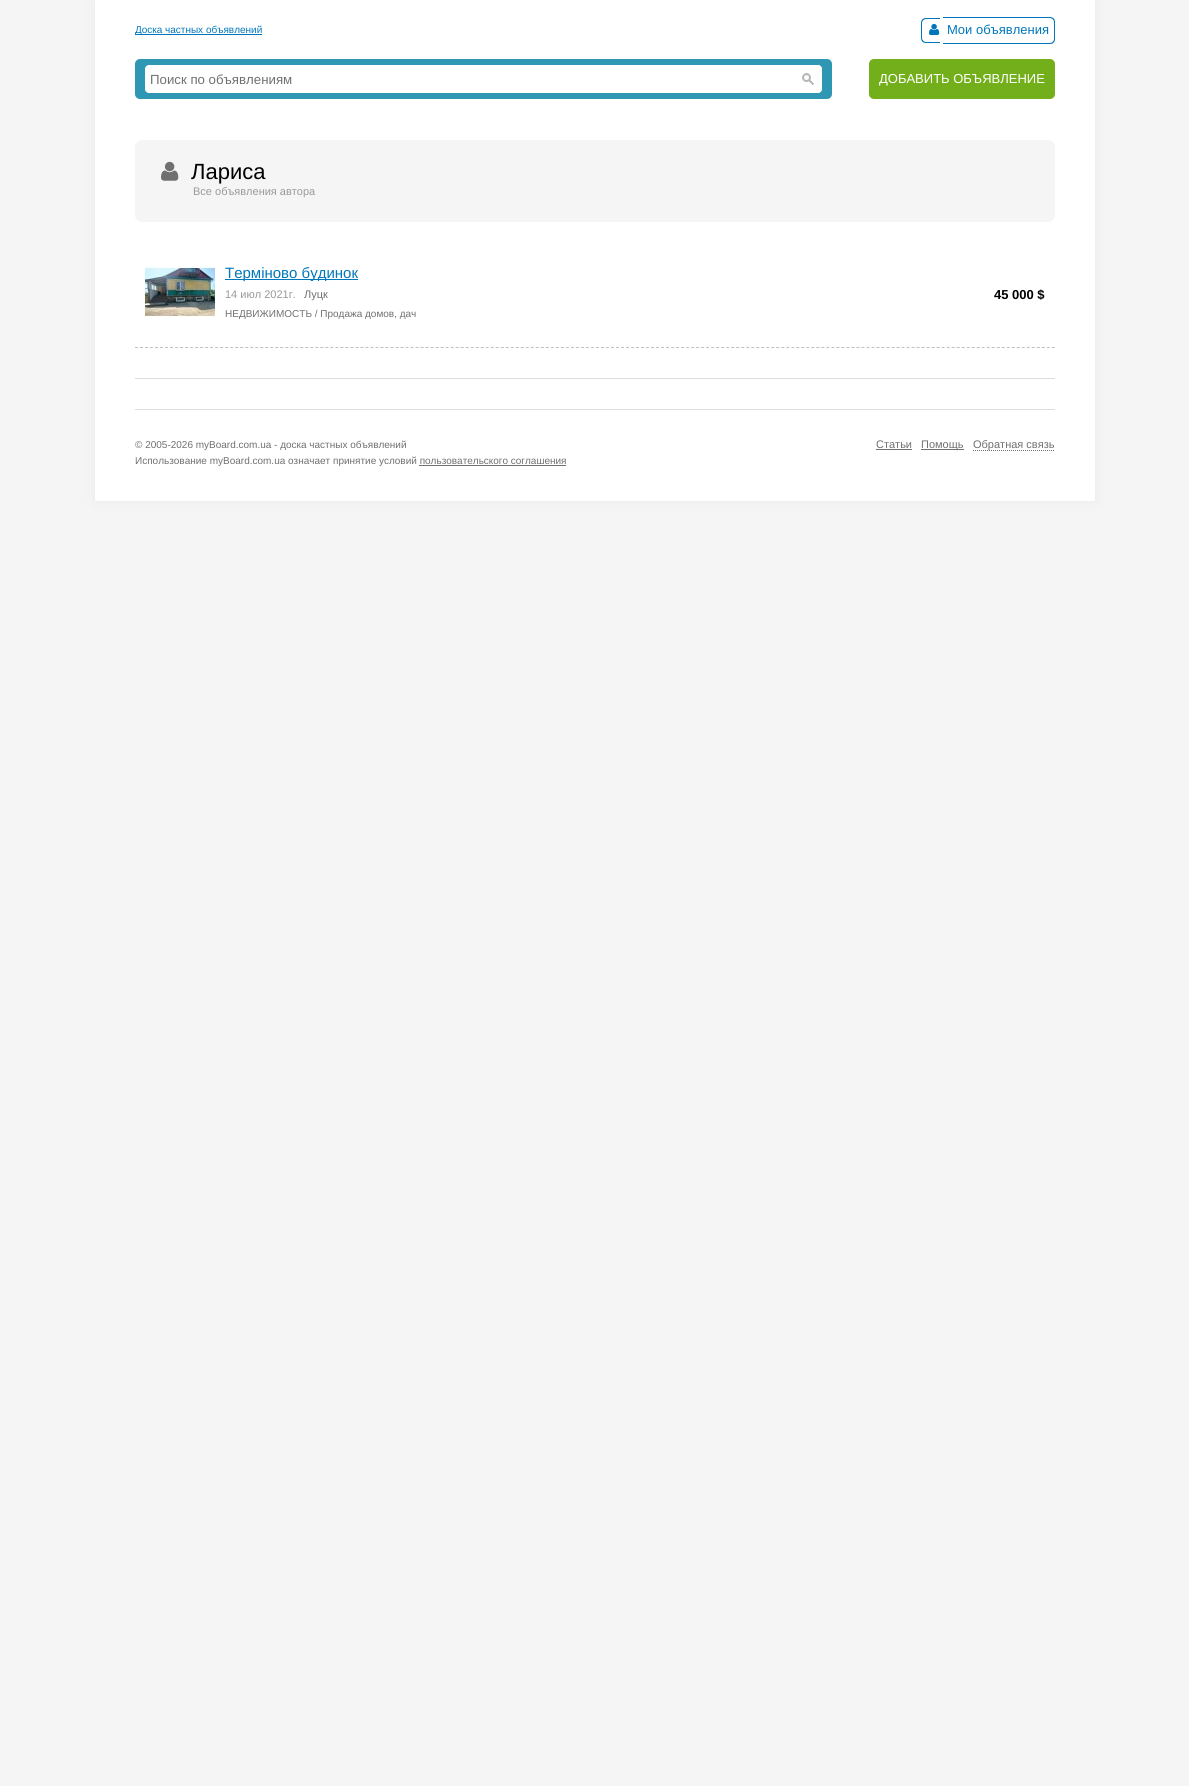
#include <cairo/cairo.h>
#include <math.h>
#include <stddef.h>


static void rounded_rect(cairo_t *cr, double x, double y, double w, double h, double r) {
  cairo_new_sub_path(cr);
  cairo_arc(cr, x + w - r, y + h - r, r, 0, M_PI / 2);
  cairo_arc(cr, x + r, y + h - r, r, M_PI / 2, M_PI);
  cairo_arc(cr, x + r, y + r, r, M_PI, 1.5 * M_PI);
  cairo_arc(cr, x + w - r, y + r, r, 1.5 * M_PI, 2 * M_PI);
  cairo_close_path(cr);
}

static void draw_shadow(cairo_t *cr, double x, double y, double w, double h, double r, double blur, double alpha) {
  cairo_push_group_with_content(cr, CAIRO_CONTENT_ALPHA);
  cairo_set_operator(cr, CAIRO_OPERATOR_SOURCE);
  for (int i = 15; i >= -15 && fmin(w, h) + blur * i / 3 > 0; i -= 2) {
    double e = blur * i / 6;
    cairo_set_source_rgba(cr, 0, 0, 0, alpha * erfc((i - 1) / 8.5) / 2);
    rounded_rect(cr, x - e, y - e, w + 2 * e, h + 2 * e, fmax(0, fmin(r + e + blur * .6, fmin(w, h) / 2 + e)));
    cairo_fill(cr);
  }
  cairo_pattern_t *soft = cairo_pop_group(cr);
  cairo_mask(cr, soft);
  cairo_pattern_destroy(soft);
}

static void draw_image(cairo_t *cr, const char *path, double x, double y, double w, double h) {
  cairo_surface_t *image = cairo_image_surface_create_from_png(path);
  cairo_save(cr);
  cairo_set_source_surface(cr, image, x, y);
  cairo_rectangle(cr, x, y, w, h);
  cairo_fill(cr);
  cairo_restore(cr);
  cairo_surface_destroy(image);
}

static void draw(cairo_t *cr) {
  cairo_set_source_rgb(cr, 245 / 255.0, 245 / 255.0, 245 / 255.0);
  cairo_paint(cr);
  cairo_set_source_rgb(cr, 232 / 255.0, 232 / 255.0, 232 / 255.0);
  draw_shadow(cr, 95, 0, 1000, 501, 0, 5, 1);
  cairo_set_source_rgb(cr, 1, 1, 1);
  cairo_rectangle(cr, 95, 0, 1000, 501);
  cairo_fill(cr);
  cairo_set_source_rgb(cr, 0, 119 / 255.0, 187 / 255.0);
  cairo_rectangle(cr, 135, 34, 127, 1);
  cairo_fill(cr);
  cairo_set_fill_rule(cr, CAIRO_FILL_RULE_EVEN_ODD);
  cairo_new_path(cr);
  cairo_move_to(cr, 926, 18);
  cairo_line_to(cr, 940, 18);
  cairo_line_to(cr, 940, 43);
  cairo_line_to(cr, 926, 43);
  cairo_curve_to(cr, 923, 43, 921, 41, 921, 38);
  cairo_line_to(cr, 921, 23);
  cairo_curve_to(cr, 921, 20, 923, 18, 926, 18);
  cairo_close_path(cr);
  cairo_move_to(cr, 926, 19);
  cairo_line_to(cr, 940, 19);
  cairo_line_to(cr, 940, 42);
  cairo_line_to(cr, 926, 42);
  cairo_curve_to(cr, 924, 42, 922, 40, 922, 38);
  cairo_line_to(cr, 922, 23);
  cairo_curve_to(cr, 922, 21, 924, 19, 926, 19);
  cairo_close_path(cr);
  cairo_fill(cr);
  cairo_new_path(cr);
  cairo_move_to(cr, 943, 17);
  cairo_line_to(cr, 1050, 17);
  cairo_curve_to(cr, 1053, 17, 1055, 19, 1055, 22);
  cairo_line_to(cr, 1055, 39);
  cairo_curve_to(cr, 1055, 42, 1053, 44, 1050, 44);
  cairo_line_to(cr, 943, 44);
  cairo_close_path(cr);
  cairo_move_to(cr, 943, 18);
  cairo_line_to(cr, 1050, 18);
  cairo_curve_to(cr, 1052, 18, 1054, 20, 1054, 22);
  cairo_line_to(cr, 1054, 39);
  cairo_curve_to(cr, 1054, 41, 1052, 43, 1050, 43);
  cairo_line_to(cr, 943, 43);
  cairo_close_path(cr);
  cairo_fill(cr);
  draw_image(cr, "images/1.png", 929, 23, 11, 12);
  cairo_set_source_rgb(cr, 47 / 255.0, 150 / 255.0, 180 / 255.0);
  rounded_rect(cr, 135, 59, 697, 40, 5);
  cairo_fill(cr);
  cairo_set_source_rgb(cr, 1, 1, 1);
  cairo_new_path(cr);
  cairo_move_to(cr, 149, 65.5);
  cairo_line_to(cr, 794.5, 65.5);
  cairo_line_to(cr, 794.5, 92.5);
  cairo_line_to(cr, 149, 92.5);
  cairo_curve_to(cr, 147, 92.5, 145.5, 91, 145.5, 89);
  cairo_line_to(cr, 145.5, 69);
  cairo_curve_to(cr, 145.5, 67, 147, 65.5, 149, 65.5);
  cairo_close_path(cr);
  cairo_fill_preserve(cr);
  cairo_set_line_width(cr, 1);
  cairo_stroke(cr);
  cairo_new_path(cr);
  cairo_move_to(cr, 795, 65);
  cairo_line_to(cr, 818, 65);
  cairo_curve_to(cr, 820, 65, 822, 67, 822, 69);
  cairo_line_to(cr, 822, 89);
  cairo_curve_to(cr, 822, 91, 820, 93, 818, 93);
  cairo_line_to(cr, 795, 93);
  cairo_close_path(cr);
  cairo_fill(cr);
  draw_image(cr, "images/2.png", 802, 73, 12, 12);
  cairo_new_path(cr);
  cairo_move_to(cr, 795, 65);
  cairo_line_to(cr, 818, 65);
  cairo_curve_to(cr, 820, 65, 822, 67, 822, 69);
  cairo_line_to(cr, 822, 89);
  cairo_curve_to(cr, 822, 91, 820, 93, 818, 93);
  cairo_line_to(cr, 795, 93);
  cairo_close_path(cr);
  cairo_move_to(cr, 795, 66);
  cairo_line_to(cr, 818, 66);
  cairo_curve_to(cr, 819.5, 66, 821, 67.5, 821, 69);
  cairo_line_to(cr, 821, 89);
  cairo_curve_to(cr, 821, 90.5, 819.5, 92, 818, 92);
  cairo_line_to(cr, 795, 92);
  cairo_close_path(cr);
  cairo_fill(cr);
  cairo_set_source_rgb(cr, 115 / 255.0, 175 / 255.0, 26 / 255.0);
  rounded_rect(cr, 869, 59, 186, 40, 5);
  cairo_fill(cr);
  cairo_set_source_rgb(cr, 245 / 255.0, 245 / 255.0, 245 / 255.0);
  rounded_rect(cr, 135, 140, 920, 82, 7);
  cairo_fill(cr);
  draw_image(cr, "images/3.png", 161, 161, 18, 20);
  draw_image(cr, "images/4.png", 145, 266, 70, 51);
  cairo_set_source_rgb(cr, 0, 119 / 255.0, 187 / 255.0);
  cairo_rectangle(cr, 225, 279, 133, 1);
  cairo_fill(cr);
  cairo_new_path(cr);
  cairo_move_to(cr, 135, 347.5);
  cairo_line_to(cr, 1055, 347.5);
  cairo_set_source_rgb(cr, 192 / 255.0, 192 / 255.0, 192 / 255.0);
  cairo_set_dash(cr, (double[]){3, 2.01}, 2, 0);
  cairo_stroke(cr);
  cairo_set_source_rgb(cr, 221 / 255.0, 221 / 255.0, 221 / 255.0);
  cairo_rectangle(cr, 135, 378, 920, 1);
  cairo_fill(cr);
  cairo_rectangle(cr, 135, 409, 920, 1);
  cairo_fill(cr);
  cairo_set_source_rgb(cr, 112 / 255.0, 112 / 255.0, 112 / 255.0);
  cairo_rectangle(cr, 419, 465, 147, 1);
  cairo_fill(cr);
  cairo_rectangle(cr, 876, 449, 36, 1);
  cairo_fill(cr);
  cairo_rectangle(cr, 921, 449, 43, 1);
  cairo_fill(cr);
  cairo_new_path(cr);
  cairo_move_to(cr, 973, 450.5);
  cairo_line_to(cr, 1055, 450.5);
  cairo_set_dash(cr, (double[]){1, 1}, 2, 0);
  cairo_stroke(cr);
  cairo_select_font_face(cr, "Liberation Sans", CAIRO_FONT_SLANT_NORMAL, CAIRO_FONT_WEIGHT_NORMAL);
  cairo_set_font_size(cr, 10);
  cairo_set_source_rgb(cr, 0, 119 / 255.0, 187 / 255.0);
  cairo_move_to(cr, 135, 33);
  cairo_show_text(cr, "Доска частных объявлений");
  cairo_set_font_size(cr, 13);
  cairo_move_to(cr, 947, 34);
  cairo_show_text(cr, "Мои объявления");
  cairo_set_font_size(cr, 13.25);
  cairo_set_source_rgb(cr, 112 / 255.0, 112 / 255.0, 112 / 255.0);
  cairo_move_to(cr, 150, 84);
  cairo_show_text(cr, "Поиск по объявлениям");
  cairo_set_font_size(cr, 13);
  cairo_set_source_rgb(cr, 1, 1, 1);
  cairo_move_to(cr, 879, 83);
  cairo_show_text(cr, "ДОБАВИТЬ ОБЪЯВЛЕНИЕ");
  cairo_set_font_size(cr, 22);
  cairo_set_source_rgb(cr, 0, 0, 0);
  cairo_move_to(cr, 191, 179);
  cairo_show_text(cr, "Лариса");
  cairo_set_font_size(cr, 11);
  cairo_set_source_rgb(cr, 153 / 255.0, 153 / 255.0, 153 / 255.0);
  cairo_move_to(cr, 193, 195);
  cairo_show_text(cr, "Все объявления автора");
  cairo_set_font_size(cr, 15);
  cairo_set_source_rgb(cr, 0, 119 / 255.0, 187 / 255.0);
  cairo_move_to(cr, 225, 278);
  cairo_show_text(cr, "Терміново будинок");
  cairo_set_font_size(cr, 11);
  cairo_set_source_rgb(cr, 153 / 255.0, 153 / 255.0, 153 / 255.0);
  cairo_move_to(cr, 225, 298);
  cairo_show_text(cr, "14 июл 2021г.");
  cairo_set_source_rgb(cr, 112 / 255.0, 112 / 255.0, 112 / 255.0);
  cairo_move_to(cr, 304, 298);
  cairo_show_text(cr, "Луцк");
  cairo_set_font_size(cr, 10);
  cairo_move_to(cr, 225, 317);
  cairo_show_text(cr, "НЕДВИЖИМОСТЬ / Продажа домов, дач");
  cairo_select_font_face(cr, "Liberation Sans", CAIRO_FONT_SLANT_NORMAL, CAIRO_FONT_WEIGHT_BOLD);
  cairo_set_font_size(cr, 13);
  cairo_set_source_rgb(cr, 0, 0, 0);
  cairo_move_to(cr, 994, 299);
  cairo_show_text(cr, "45 000 $");
  cairo_select_font_face(cr, "Liberation Sans", CAIRO_FONT_SLANT_NORMAL, CAIRO_FONT_WEIGHT_NORMAL);
  cairo_set_font_size(cr, 10);
  cairo_set_source_rgb(cr, 112 / 255.0, 112 / 255.0, 112 / 255.0);
  cairo_move_to(cr, 135, 448);
  cairo_show_text(cr, "© 2005-2026 myBoard.com.ua - доска частных объявлений");
  cairo_move_to(cr, 135, 464);
  cairo_show_text(cr, "Использование myBoard.com.ua означает принятие условий пользовательского соглашения");
  cairo_set_font_size(cr, 11);
  cairo_move_to(cr, 876, 448);
  cairo_show_text(cr, "Статьи");
  cairo_move_to(cr, 921, 448);
  cairo_show_text(cr, "Помощь");
  cairo_move_to(cr, 973, 448);
  cairo_show_text(cr, "Обратная связь");
}

int main(void) {
  cairo_surface_t *surface = cairo_image_surface_create(CAIRO_FORMAT_RGB24, 1189, 1786);
  cairo_t *cr = cairo_create(surface);
  cairo_font_options_t *options = cairo_font_options_create();
  cairo_font_options_set_hint_metrics(options, CAIRO_HINT_METRICS_OFF);
  cairo_font_options_set_hint_style(options, CAIRO_HINT_STYLE_NONE);
  cairo_set_font_options(cr, options);
  cairo_set_miter_limit(cr, 4);
  draw(cr);
  cairo_surface_write_to_png(surface, "out.png");
  cairo_font_options_destroy(options);
  cairo_destroy(cr);
  cairo_surface_destroy(surface);
  return 0;
}
